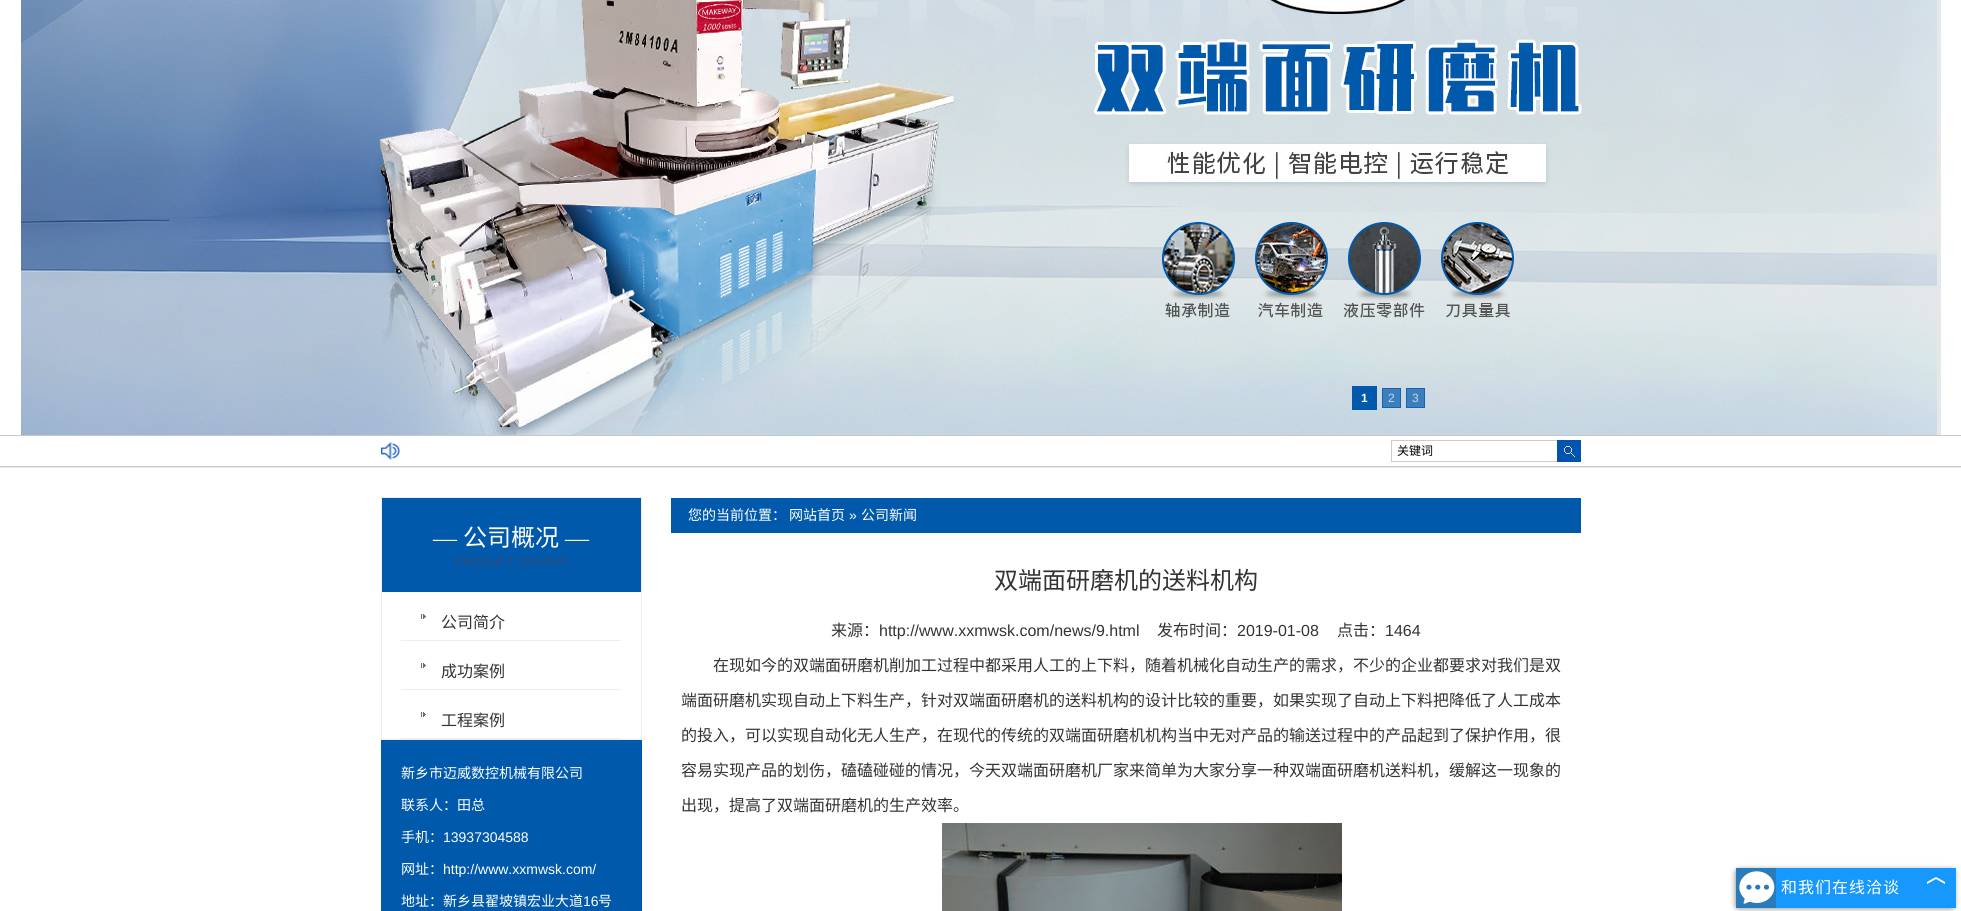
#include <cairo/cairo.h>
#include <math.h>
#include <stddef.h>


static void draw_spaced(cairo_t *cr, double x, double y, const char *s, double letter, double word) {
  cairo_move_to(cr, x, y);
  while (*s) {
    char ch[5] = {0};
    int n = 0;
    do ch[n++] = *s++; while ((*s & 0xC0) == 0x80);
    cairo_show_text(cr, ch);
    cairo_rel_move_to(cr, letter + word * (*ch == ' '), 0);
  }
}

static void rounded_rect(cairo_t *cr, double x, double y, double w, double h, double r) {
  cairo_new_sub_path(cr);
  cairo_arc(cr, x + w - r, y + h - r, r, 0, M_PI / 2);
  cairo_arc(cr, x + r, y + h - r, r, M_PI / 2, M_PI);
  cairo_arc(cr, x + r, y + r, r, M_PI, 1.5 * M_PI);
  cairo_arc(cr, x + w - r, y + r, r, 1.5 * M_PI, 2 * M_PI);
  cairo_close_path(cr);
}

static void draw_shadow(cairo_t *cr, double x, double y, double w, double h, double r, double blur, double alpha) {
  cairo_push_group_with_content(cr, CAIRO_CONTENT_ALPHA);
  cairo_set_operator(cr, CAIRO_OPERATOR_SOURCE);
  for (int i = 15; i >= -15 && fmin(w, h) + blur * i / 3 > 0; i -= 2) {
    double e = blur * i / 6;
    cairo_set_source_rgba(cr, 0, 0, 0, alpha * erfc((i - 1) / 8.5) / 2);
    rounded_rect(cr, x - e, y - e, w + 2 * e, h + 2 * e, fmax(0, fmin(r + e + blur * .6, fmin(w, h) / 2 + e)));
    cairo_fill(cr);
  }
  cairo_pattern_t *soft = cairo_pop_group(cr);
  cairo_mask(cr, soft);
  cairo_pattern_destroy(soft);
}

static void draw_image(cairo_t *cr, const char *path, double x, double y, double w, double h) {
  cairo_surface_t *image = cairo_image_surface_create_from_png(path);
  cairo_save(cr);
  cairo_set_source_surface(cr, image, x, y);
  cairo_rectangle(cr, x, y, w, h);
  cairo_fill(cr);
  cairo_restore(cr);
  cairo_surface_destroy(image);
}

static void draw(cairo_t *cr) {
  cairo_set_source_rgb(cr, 1, 1, 1);
  cairo_paint(cr);
  draw_image(cr, "images/1.png", 21, 0, 1920, 435);
  cairo_set_source_rgb(cr, 0, 89 / 255.0, 171 / 255.0);
  cairo_rectangle(cr, 1352, 386, 25, 24);
  cairo_fill(cr);
  cairo_set_source_rgba(cr, 0, 89 / 255.0, 171 / 255.0, 0.7);
  cairo_rectangle(cr, 1382, 388, 19, 20);
  cairo_fill(cr);
  cairo_rectangle(cr, 1382.5, 388.5, 18, 19);
  cairo_set_line_width(cr, 1);
  cairo_stroke(cr);
  cairo_rectangle(cr, 1406.5, 388.5, 18, 19);
  cairo_fill_preserve(cr);
  cairo_set_source_rgb(cr, 18 / 255.0, 101 / 255.0, 176 / 255.0);
  cairo_stroke(cr);
  cairo_set_source_rgb(cr, 199 / 255.0, 200 / 255.0, 204 / 255.0);
  cairo_rectangle(cr, 0, 435, 1961, 1);
  cairo_fill(cr);
  cairo_rectangle(cr, 0, 466, 1961, 1);
  cairo_fill(cr);
  draw_image(cr, "images/2.png", 381, 442, 19, 18);
  cairo_set_source_rgb(cr, 204 / 255.0, 204 / 255.0, 204 / 255.0);
  cairo_rectangle(cr, 1391, 440, 166, 1);
  cairo_fill(cr);
  cairo_rectangle(cr, 1391, 461, 166, 1);
  cairo_fill(cr);
  cairo_rectangle(cr, 1391, 440, 1, 22);
  cairo_fill(cr);
  draw_image(cr, "images/3.png", 1557, 440, 24, 22);
  cairo_set_source_rgb(cr, 237 / 255.0, 237 / 255.0, 237 / 255.0);
  cairo_rectangle(cr, 0, 467, 1961, 1);
  cairo_fill(cr);
  cairo_rectangle(cr, 381.5, 497.5, 260, 242);
  cairo_set_source_rgb(cr, 238 / 255.0, 238 / 255.0, 238 / 255.0);
  cairo_stroke(cr);
  cairo_set_source_rgb(cr, 0, 89 / 255.0, 171 / 255.0);
  cairo_rectangle(cr, 382, 498, 259, 94);
  cairo_fill(cr);
  draw_image(cr, "images/4.png", 421, 614, 5, 5);
  cairo_set_source_rgb(cr, 238 / 255.0, 238 / 255.0, 238 / 255.0);
  cairo_rectangle(cr, 401, 640, 220, 1);
  cairo_fill(cr);
  draw_image(cr, "images/4.png", 421, 663, 5, 5);
  cairo_rectangle(cr, 401, 689, 220, 1);
  cairo_fill(cr);
  draw_image(cr, "images/4.png", 421, 712, 5, 5);
  cairo_rectangle(cr, 401, 738, 220, 1);
  cairo_fill(cr);
  cairo_set_source_rgb(cr, 0, 89 / 255.0, 171 / 255.0);
  cairo_rectangle(cr, 381, 740, 261, 171);
  cairo_fill(cr);
  cairo_rectangle(cr, 671, 498, 910, 35);
  cairo_fill(cr);
  draw_image(cr, "images/5.png", 942, 823, 400, 88);
  cairo_set_source_rgb(cr, 0, 0, 0);
  draw_shadow(cr, 1735, 869, 220, 40, 4, 2.5, 0.4);
  cairo_set_source_rgb(cr, 23 / 255.0, 152 / 255.0, 252 / 255.0);
  cairo_rectangle(cr, 1776, 868, 180, 40);
  cairo_fill(cr);
  cairo_set_source_rgb(cr, 42 / 255.0, 123 / 255.0, 185 / 255.0);
  cairo_rectangle(cr, 1736, 868, 40, 40);
  cairo_fill(cr);
  draw_image(cr, "images/6.png", 1739, 871, 36, 33);
  draw_image(cr, "images/7.png", 1927, 877, 18, 7);
  cairo_select_font_face(cr, "Liberation Sans", CAIRO_FONT_SLANT_NORMAL, CAIRO_FONT_WEIGHT_BOLD);
  cairo_set_font_size(cr, 12);
  cairo_set_source_rgb(cr, 1, 1, 1);
  cairo_move_to(cr, 1361, 402);
  cairo_show_text(cr, "1");
  cairo_select_font_face(cr, "Liberation Sans", CAIRO_FONT_SLANT_NORMAL, CAIRO_FONT_WEIGHT_NORMAL);
  cairo_set_source_rgb(cr, 197 / 255.0, 217 / 255.0, 235 / 255.0);
  cairo_move_to(cr, 1388, 402);
  cairo_show_text(cr, "2");
  cairo_move_to(cr, 1412, 402);
  cairo_show_text(cr, "3");
  cairo_select_font_face(cr, "Noto Sans CJK SC", CAIRO_FONT_SLANT_NORMAL, CAIRO_FONT_WEIGHT_NORMAL);
  cairo_set_source_rgb(cr, 0, 0, 0);
  cairo_move_to(cr, 1397, 455);
  cairo_show_text(cr, "关键词");
  cairo_select_font_face(cr, "Liberation Serif", CAIRO_FONT_SLANT_NORMAL, CAIRO_FONT_WEIGHT_NORMAL);
  cairo_set_font_size(cr, 24);
  cairo_set_source_rgb(cr, 1, 1, 1);
  cairo_move_to(cr, 433, 546);
  cairo_show_text(cr, "—");
  cairo_select_font_face(cr, "Noto Sans CJK SC", CAIRO_FONT_SLANT_NORMAL, CAIRO_FONT_WEIGHT_NORMAL);
  cairo_move_to(cr, 463, 546);
  cairo_show_text(cr, "公司概况");
  cairo_select_font_face(cr, "Liberation Serif", CAIRO_FONT_SLANT_NORMAL, CAIRO_FONT_WEIGHT_NORMAL);
  cairo_move_to(cr, 565, 546);
  cairo_show_text(cr, "—");
  cairo_select_font_face(cr, "Liberation Sans", CAIRO_FONT_SLANT_NORMAL, CAIRO_FONT_WEIGHT_NORMAL);
  cairo_set_font_size(cr, 12);
  cairo_set_source_rgb(cr, 50 / 255.0, 75 / 255.0, 119 / 255.0);
  cairo_move_to(cr, 455, 566);
  cairo_show_text(cr, "PRODUCT CENTER");
  cairo_select_font_face(cr, "Noto Sans CJK SC", CAIRO_FONT_SLANT_NORMAL, CAIRO_FONT_WEIGHT_NORMAL);
  cairo_set_font_size(cr, 16);
  cairo_set_source_rgb(cr, 51 / 255.0, 51 / 255.0, 51 / 255.0);
  cairo_move_to(cr, 441, 628);
  cairo_show_text(cr, "公司简介");
  cairo_move_to(cr, 441, 677);
  cairo_show_text(cr, "成功案例");
  cairo_move_to(cr, 441, 726);
  cairo_show_text(cr, "工程案例");
  cairo_set_font_size(cr, 14);
  cairo_set_source_rgb(cr, 1, 1, 1);
  cairo_move_to(cr, 401, 778);
  cairo_show_text(cr, "新乡市迈威数控机械有限公司");
  cairo_move_to(cr, 401, 810);
  cairo_show_text(cr, "联系人：田总");
  cairo_move_to(cr, 401, 842);
  cairo_show_text(cr, "手机：");
  cairo_select_font_face(cr, "Liberation Sans", CAIRO_FONT_SLANT_NORMAL, CAIRO_FONT_WEIGHT_NORMAL);
  cairo_move_to(cr, 443, 842);
  cairo_show_text(cr, "13937304588");
  cairo_select_font_face(cr, "Noto Sans CJK SC", CAIRO_FONT_SLANT_NORMAL, CAIRO_FONT_WEIGHT_NORMAL);
  cairo_move_to(cr, 401, 874);
  cairo_show_text(cr, "网址：");
  cairo_select_font_face(cr, "Liberation Sans", CAIRO_FONT_SLANT_NORMAL, CAIRO_FONT_WEIGHT_NORMAL);
  cairo_move_to(cr, 443, 874);
  cairo_show_text(cr, "http://www.xxmwsk.com/");
  cairo_select_font_face(cr, "Noto Sans CJK SC", CAIRO_FONT_SLANT_NORMAL, CAIRO_FONT_WEIGHT_NORMAL);
  cairo_move_to(cr, 401, 906);
  cairo_show_text(cr, "地址：新乡县翟坡镇宏业大道");
  cairo_select_font_face(cr, "Liberation Sans", CAIRO_FONT_SLANT_NORMAL, CAIRO_FONT_WEIGHT_NORMAL);
  cairo_move_to(cr, 583, 906);
  cairo_show_text(cr, "16");
  cairo_select_font_face(cr, "Noto Sans CJK SC", CAIRO_FONT_SLANT_NORMAL, CAIRO_FONT_WEIGHT_NORMAL);
  cairo_move_to(cr, 598, 906);
  cairo_show_text(cr, "号");
  cairo_move_to(cr, 688, 520);
  cairo_show_text(cr, "您的当前位置：");
  cairo_move_to(cr, 789, 520);
  cairo_show_text(cr, "网站首页");
  cairo_select_font_face(cr, "Liberation Sans", CAIRO_FONT_SLANT_NORMAL, CAIRO_FONT_WEIGHT_NORMAL);
  cairo_move_to(cr, 849, 520);
  cairo_show_text(cr, "»");
  cairo_select_font_face(cr, "Noto Sans CJK SC", CAIRO_FONT_SLANT_NORMAL, CAIRO_FONT_WEIGHT_NORMAL);
  cairo_move_to(cr, 861, 520);
  cairo_show_text(cr, "公司新闻");
  cairo_set_font_size(cr, 24);
  cairo_set_source_rgb(cr, 51 / 255.0, 51 / 255.0, 51 / 255.0);
  cairo_move_to(cr, 994, 589);
  cairo_show_text(cr, "双端面研磨机的送料机构");
  cairo_set_font_size(cr, 16);
  cairo_move_to(cr, 831, 636);
  cairo_show_text(cr, "来源：");
  cairo_select_font_face(cr, "Liberation Sans", CAIRO_FONT_SLANT_NORMAL, CAIRO_FONT_WEIGHT_NORMAL);
  cairo_move_to(cr, 879, 636);
  cairo_show_text(cr, "http://www.xxmwsk.com/news/9.html");
  cairo_select_font_face(cr, "Noto Sans CJK SC", CAIRO_FONT_SLANT_NORMAL, CAIRO_FONT_WEIGHT_NORMAL);
  cairo_move_to(cr, 1157, 636);
  cairo_show_text(cr, "发布时间：");
  cairo_select_font_face(cr, "Liberation Sans", CAIRO_FONT_SLANT_NORMAL, CAIRO_FONT_WEIGHT_NORMAL);
  cairo_move_to(cr, 1237, 636);
  cairo_show_text(cr, "2019-01-08");
  cairo_select_font_face(cr, "Noto Sans CJK SC", CAIRO_FONT_SLANT_NORMAL, CAIRO_FONT_WEIGHT_NORMAL);
  cairo_move_to(cr, 1337, 636);
  cairo_show_text(cr, "点击：");
  cairo_select_font_face(cr, "Liberation Sans", CAIRO_FONT_SLANT_NORMAL, CAIRO_FONT_WEIGHT_NORMAL);
  cairo_move_to(cr, 1385, 636);
  cairo_show_text(cr, "1464");
  cairo_select_font_face(cr, "Noto Sans CJK SC", CAIRO_FONT_SLANT_NORMAL, CAIRO_FONT_WEIGHT_NORMAL);
  cairo_move_to(cr, 713, 671);
  cairo_show_text(cr, "在现如今的双端面研磨机削加工过程中都采用人工的上下料，随着机械化自动生产的需求，不少的企业都要求对我们是双");
  cairo_move_to(cr, 681, 706);
  cairo_show_text(cr, "端面研磨机实现自动上下料生产，针对双端面研磨机的送料机构的设计比较的重要，如果实现了自动上下料把降低了人工成本");
  cairo_move_to(cr, 681, 741);
  cairo_show_text(cr, "的投入，可以实现自动化无人生产，在现代的传统的双端面研磨机机构当中无对产品的输送过程中的产品起到了保护作用，很");
  cairo_move_to(cr, 681, 776);
  cairo_show_text(cr, "容易实现产品的划伤，磕磕碰碰的情况，今天双端面研磨机厂家来简单为大家分享一种双端面研磨机送料机，缓解这一现象的");
  cairo_move_to(cr, 681, 811);
  cairo_show_text(cr, "出现，提高了双端面研磨机的生产效率。");
  cairo_set_source_rgb(cr, 1, 1, 1);
  draw_spaced(cr, 1781, 893, "和我们在线洽谈", 1, 0);
}

int main(void) {
  cairo_surface_t *surface = cairo_image_surface_create(CAIRO_FORMAT_RGB24, 1961, 911);
  cairo_t *cr = cairo_create(surface);
  cairo_font_options_t *options = cairo_font_options_create();
  cairo_font_options_set_hint_metrics(options, CAIRO_HINT_METRICS_OFF);
  cairo_font_options_set_hint_style(options, CAIRO_HINT_STYLE_NONE);
  cairo_set_font_options(cr, options);
  cairo_set_miter_limit(cr, 4);
  draw(cr);
  cairo_surface_write_to_png(surface, "out.png");
  cairo_font_options_destroy(options);
  cairo_destroy(cr);
  cairo_surface_destroy(surface);
  return 0;
}
